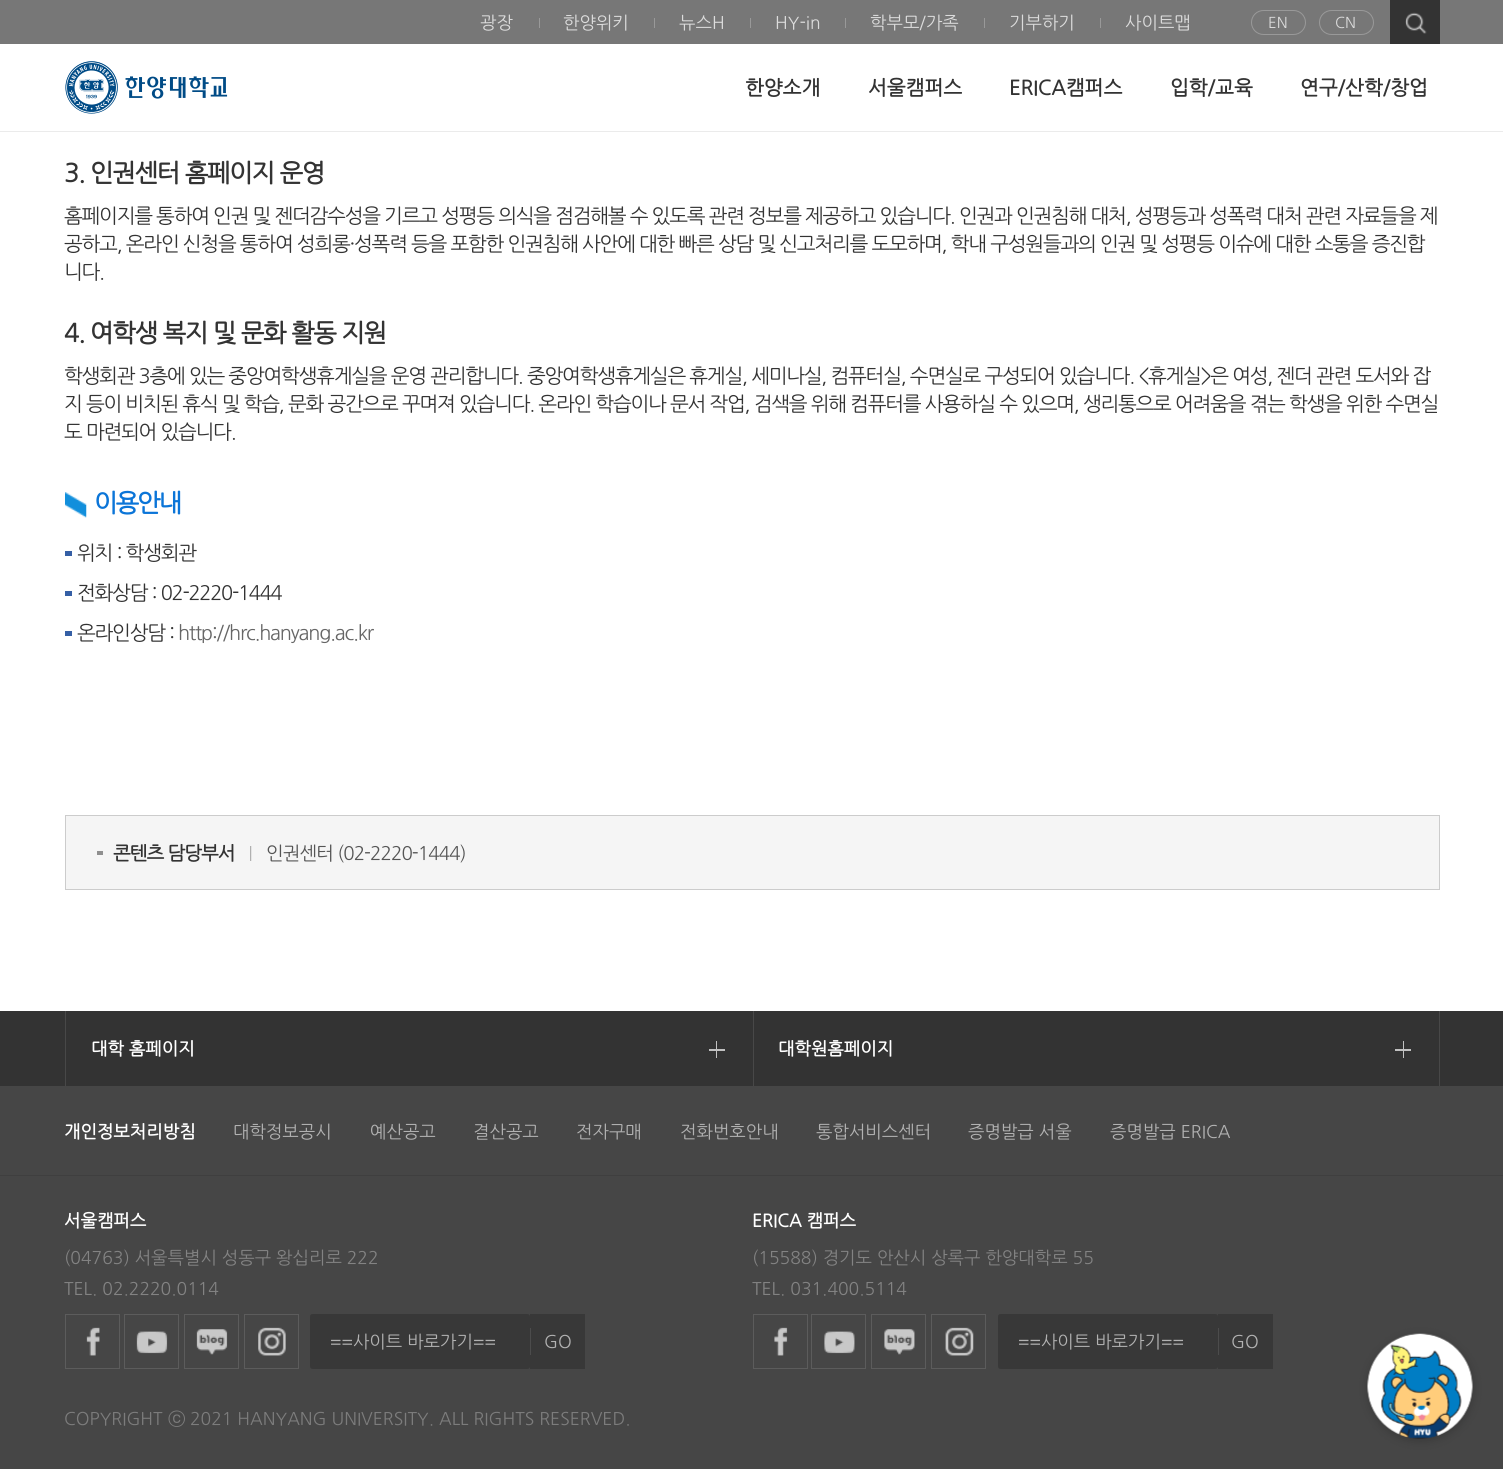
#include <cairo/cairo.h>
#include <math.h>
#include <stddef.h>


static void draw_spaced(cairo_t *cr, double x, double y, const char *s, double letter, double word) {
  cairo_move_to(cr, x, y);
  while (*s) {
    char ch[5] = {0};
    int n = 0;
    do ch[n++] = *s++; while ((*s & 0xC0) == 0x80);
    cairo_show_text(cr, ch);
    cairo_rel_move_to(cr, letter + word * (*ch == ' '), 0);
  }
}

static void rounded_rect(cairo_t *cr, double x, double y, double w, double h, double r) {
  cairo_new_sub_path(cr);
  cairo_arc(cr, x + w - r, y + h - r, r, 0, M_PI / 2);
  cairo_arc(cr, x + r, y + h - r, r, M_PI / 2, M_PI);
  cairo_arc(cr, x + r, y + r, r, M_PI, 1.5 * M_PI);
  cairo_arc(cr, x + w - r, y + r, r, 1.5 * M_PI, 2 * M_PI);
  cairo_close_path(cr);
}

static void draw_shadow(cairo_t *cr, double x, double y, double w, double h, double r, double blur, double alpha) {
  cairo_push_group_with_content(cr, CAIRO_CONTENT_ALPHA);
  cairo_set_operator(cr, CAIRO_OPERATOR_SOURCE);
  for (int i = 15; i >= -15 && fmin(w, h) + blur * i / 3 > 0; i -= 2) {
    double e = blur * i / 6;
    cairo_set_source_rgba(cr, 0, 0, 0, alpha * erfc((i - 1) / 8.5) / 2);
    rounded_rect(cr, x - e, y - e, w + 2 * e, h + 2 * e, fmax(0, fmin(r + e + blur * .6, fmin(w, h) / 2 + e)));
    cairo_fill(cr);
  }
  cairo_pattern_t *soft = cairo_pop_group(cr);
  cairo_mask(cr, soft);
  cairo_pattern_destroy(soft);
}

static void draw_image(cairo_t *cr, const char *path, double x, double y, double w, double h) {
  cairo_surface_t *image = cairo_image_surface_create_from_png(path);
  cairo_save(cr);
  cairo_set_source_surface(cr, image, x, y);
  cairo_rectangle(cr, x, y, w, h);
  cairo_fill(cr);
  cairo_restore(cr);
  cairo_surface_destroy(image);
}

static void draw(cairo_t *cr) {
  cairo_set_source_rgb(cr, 1, 1, 1);
  cairo_paint(cr);
  cairo_set_source_rgb(cr, 119 / 255.0, 119 / 255.0, 119 / 255.0);
  cairo_rectangle(cr, 0, 0, 1503, 44);
  cairo_fill(cr);
  cairo_set_source_rgb(cr, 153 / 255.0, 153 / 255.0, 153 / 255.0);
  cairo_rectangle(cr, 539, 18, 1, 10);
  cairo_fill(cr);
  cairo_rectangle(cr, 654, 18, 1, 10);
  cairo_fill(cr);
  cairo_rectangle(cr, 750, 18, 1, 10);
  cairo_fill(cr);
  cairo_rectangle(cr, 845, 18, 1, 10);
  cairo_fill(cr);
  cairo_rectangle(cr, 984, 18, 1, 10);
  cairo_fill(cr);
  cairo_rectangle(cr, 1100, 18, 1, 10);
  cairo_fill(cr);
  rounded_rect(cr, 1251.5, 10.5, 54, 24, 12);
  cairo_set_line_width(cr, 1);
  cairo_stroke(cr);
  rounded_rect(cr, 1319.5, 10.5, 54, 24, 12);
  cairo_stroke(cr);
  cairo_set_source_rgb(cr, 51 / 255.0, 51 / 255.0, 51 / 255.0);
  cairo_rectangle(cr, 1390, 0, 50, 44);
  cairo_fill(cr);
  draw_image(cr, "images/1.png", 1405, 12, 22, 22);
  draw_image(cr, "images/2.png", 65, 61, 163, 53);
  cairo_set_source_rgb(cr, 235 / 255.0, 235 / 255.0, 235 / 255.0);
  cairo_rectangle(cr, 0, 131, 1503, 1);
  cairo_fill(cr);
  draw_image(cr, "images/3.png", 65, 492, 22, 26);
  cairo_set_source_rgb(cr, 53 / 255.0, 95 / 255.0, 165 / 255.0);
  cairo_rectangle(cr, 65, 551, 7, 5);
  cairo_fill(cr);
  cairo_rectangle(cr, 65, 591, 7, 5);
  cairo_fill(cr);
  cairo_rectangle(cr, 65, 631, 7, 5);
  cairo_fill(cr);
  cairo_set_source_rgb(cr, 245 / 255.0, 245 / 255.0, 245 / 255.0);
  cairo_rectangle(cr, 65.5, 815.5, 1374, 74);
  cairo_fill_preserve(cr);
  cairo_set_source_rgb(cr, 204 / 255.0, 204 / 255.0, 204 / 255.0);
  cairo_stroke(cr);
  cairo_set_source_rgb(cr, 143 / 255.0, 143 / 255.0, 143 / 255.0);
  cairo_rectangle(cr, 97, 851, 6, 4);
  cairo_fill(cr);
  draw_image(cr, "images/4.png", 250, 846, 2, 15);
  cairo_set_source_rgb(cr, 70 / 255.0, 70 / 255.0, 70 / 255.0);
  cairo_rectangle(cr, 0, 1086, 1503, 383);
  cairo_fill(cr);
  cairo_set_source_rgb(cr, 51 / 255.0, 51 / 255.0, 51 / 255.0);
  cairo_rectangle(cr, 0, 1011, 1503, 75);
  cairo_fill(cr);
  cairo_set_source_rgb(cr, 72 / 255.0, 72 / 255.0, 72 / 255.0);
  cairo_rectangle(cr, 65, 1011, 1, 75);
  cairo_fill(cr);
  cairo_set_source_rgb(cr, 194 / 255.0, 194 / 255.0, 194 / 255.0);
  cairo_rectangle(cr, 716, 1041, 1, 17);
  cairo_fill(cr);
  cairo_rectangle(cr, 709, 1049, 16, 2);
  cairo_fill(cr);
  cairo_set_source_rgb(cr, 72 / 255.0, 72 / 255.0, 72 / 255.0);
  cairo_rectangle(cr, 1439, 1011, 1, 75);
  cairo_fill(cr);
  cairo_rectangle(cr, 753, 1011, 1, 75);
  cairo_fill(cr);
  cairo_set_source_rgb(cr, 194 / 255.0, 194 / 255.0, 194 / 255.0);
  cairo_rectangle(cr, 1403, 1041, 1, 17);
  cairo_fill(cr);
  cairo_rectangle(cr, 1395, 1049, 16, 2);
  cairo_fill(cr);
  cairo_set_source_rgb(cr, 63 / 255.0, 63 / 255.0, 63 / 255.0);
  cairo_rectangle(cr, 0, 1175, 1503, 1);
  cairo_fill(cr);
  cairo_rectangle(cr, 65.5, 1314.5, 54, 54);
  cairo_set_source_rgb(cr, 92 / 255.0, 92 / 255.0, 92 / 255.0);
  cairo_stroke(cr);
  draw_image(cr, "images/5.png", 86, 1327, 14, 29);
  cairo_rectangle(cr, 124.5, 1314.5, 54, 54);
  cairo_stroke(cr);
  draw_image(cr, "images/6.png", 136, 1331, 32, 23);
  cairo_rectangle(cr, 184.5, 1314.5, 54, 54);
  cairo_stroke(cr);
  draw_image(cr, "images/7.png", 196, 1329, 32, 26);
  cairo_rectangle(cr, 244.5, 1314.5, 54, 54);
  cairo_stroke(cr);
  draw_image(cr, "images/8.png", 258, 1327, 28, 29);
  cairo_set_source_rgb(cr, 56 / 255.0, 56 / 255.0, 56 / 255.0);
  rounded_rect(cr, 310, 1314, 220, 55, 2.5);
  cairo_fill(cr);
  cairo_rectangle(cr, 530, 1314, 55, 55);
  cairo_fill(cr);
  cairo_set_source_rgb(cr, 76 / 255.0, 76 / 255.0, 76 / 255.0);
  cairo_rectangle(cr, 530, 1328, 1, 27);
  cairo_fill(cr);
  cairo_rectangle(cr, 753.5, 1314.5, 54, 54);
  cairo_set_source_rgb(cr, 92 / 255.0, 92 / 255.0, 92 / 255.0);
  cairo_stroke(cr);
  draw_image(cr, "images/9.png", 774, 1327, 14, 29);
  cairo_rectangle(cr, 811.5, 1314.5, 54, 54);
  cairo_stroke(cr);
  draw_image(cr, "images/10.png", 824, 1331, 31, 23);
  cairo_rectangle(cr, 871.5, 1314.5, 54, 54);
  cairo_stroke(cr);
  draw_image(cr, "images/11.png", 884, 1329, 31, 26);
  cairo_rectangle(cr, 931.5, 1314.5, 54, 54);
  cairo_stroke(cr);
  draw_image(cr, "images/12.png", 945, 1327, 29, 29);
  cairo_set_source_rgb(cr, 56 / 255.0, 56 / 255.0, 56 / 255.0);
  rounded_rect(cr, 998, 1314, 220, 55, 2.5);
  cairo_fill(cr);
  cairo_rectangle(cr, 1218, 1314, 55, 55);
  cairo_fill(cr);
  cairo_set_source_rgb(cr, 76 / 255.0, 76 / 255.0, 76 / 255.0);
  cairo_rectangle(cr, 1218, 1328, 1, 27);
  cairo_fill(cr);
  cairo_set_source_rgb(cr, 0, 0, 0);
  draw_shadow(cr, 1368, 1336, 105, 105, 52.5, 5, 0.2);
  draw_image(cr, "images/13.png", 1367, 1333, 106, 106);
  cairo_select_font_face(cr, "NanumGothic", CAIRO_FONT_SLANT_NORMAL, CAIRO_FONT_WEIGHT_NORMAL);
  cairo_set_font_size(cr, 17.5);
  cairo_set_source_rgb(cr, 220 / 255.0, 220 / 255.0, 220 / 255.0);
  cairo_move_to(cr, 480, 29);
  cairo_show_text(cr, "광장");
  cairo_move_to(cr, 563, 29);
  cairo_show_text(cr, "한양위키");
  cairo_move_to(cr, 679, 29);
  cairo_show_text(cr, "뉴스H");
  cairo_move_to(cr, 775, 29);
  cairo_show_text(cr, "HY-in");
  cairo_move_to(cr, 870, 29);
  cairo_show_text(cr, "학부모/가족");
  cairo_move_to(cr, 1009, 29);
  cairo_show_text(cr, "기부하기");
  cairo_move_to(cr, 1125, 29);
  cairo_show_text(cr, "사이트맵");
  cairo_set_font_size(cr, 15);
  cairo_move_to(cr, 1268, 28);
  cairo_show_text(cr, "EN");
  cairo_move_to(cr, 1335, 28);
  cairo_show_text(cr, "CN");
  cairo_select_font_face(cr, "NanumGothic", CAIRO_FONT_SLANT_NORMAL, CAIRO_FONT_WEIGHT_BOLD);
  cairo_set_font_size(cr, 20);
  cairo_set_source_rgb(cr, 51 / 255.0, 51 / 255.0, 51 / 255.0);
  cairo_move_to(cr, 745, 95);
  cairo_show_text(cr, "한양소개");
  cairo_move_to(cr, 868, 95);
  cairo_show_text(cr, "서울캠퍼스");
  cairo_move_to(cr, 1009, 95);
  cairo_show_text(cr, "ERICA캠퍼스");
  cairo_move_to(cr, 1170, 95);
  cairo_show_text(cr, "입학/교육");
  cairo_move_to(cr, 1300, 95);
  cairo_show_text(cr, "연구/산학/창업");
  cairo_set_font_size(cr, 25);
  draw_spaced(cr, 64, 182, "3. 인권센터 홈페이지 운영", -1.25, 0);
  cairo_select_font_face(cr, "NanumGothic", CAIRO_FONT_SLANT_NORMAL, CAIRO_FONT_WEIGHT_NORMAL);
  cairo_set_font_size(cr, 20);
  draw_spaced(cr, 64, 223, "홈페이지를 통하여 인권 및 젠더감수성을 기르고 성평등 의식을 점검해볼 수 있도록 관련 정보를 제공하고 있습니다. 인권과 인권침해 대처, 성평등과 성폭력 대처 관련 자료들을 제", -1.25, 0);
  draw_spaced(cr, 64, 251, "공하고, 온라인 신청을 통하여 성희롱·성폭력 등을 포함한 인권침해 사안에 대한 빠른 상담 및 신고처리를 도모하며, 학내 구성원들과의 인권 및 성평등 이슈에 대한 소통을 증진합", -1.25, 0);
  draw_spaced(cr, 64, 279, "니다.", -1.25, 0);
  cairo_select_font_face(cr, "NanumGothic", CAIRO_FONT_SLANT_NORMAL, CAIRO_FONT_WEIGHT_BOLD);
  cairo_set_font_size(cr, 25);
  draw_spaced(cr, 64, 342, "4. 여학생 복지 및 문화 활동 지원", -1.25, 0);
  cairo_select_font_face(cr, "NanumGothic", CAIRO_FONT_SLANT_NORMAL, CAIRO_FONT_WEIGHT_NORMAL);
  cairo_set_font_size(cr, 20);
  draw_spaced(cr, 64, 383, "학생회관 3층에 있는 중앙여학생휴게실을 운영 관리합니다. 중앙여학생휴게실은 휴게실, 세미나실, 컴퓨터실, 수면실로 구성되어 있습니다. <휴게실>은 여성, 젠더 관련 도서와 잡", -1.25, 0);
  draw_spaced(cr, 64, 411, "지 등이 비치된 휴식 및 학습, 문화 공간으로 꾸며져 있습니다. 온라인 학습이나 문서 작업, 검색을 위해 컴퓨터를 사용하실 수 있으며, 생리통으로 어려움을 겪는 학생을 위한 수면실", -1.25, 0);
  draw_spaced(cr, 64, 439, "도 마련되어 있습니다.", -1.25, 0);
  cairo_select_font_face(cr, "NanumGothic", CAIRO_FONT_SLANT_NORMAL, CAIRO_FONT_WEIGHT_BOLD);
  cairo_set_font_size(cr, 25);
  cairo_set_source_rgb(cr, 11 / 255.0, 117 / 255.0, 216 / 255.0);
  draw_spaced(cr, 94, 512, "이용안내", -2, 0);
  cairo_select_font_face(cr, "NanumGothic", CAIRO_FONT_SLANT_NORMAL, CAIRO_FONT_WEIGHT_NORMAL);
  cairo_set_font_size(cr, 20);
  cairo_set_source_rgb(cr, 51 / 255.0, 51 / 255.0, 51 / 255.0);
  draw_spaced(cr, 77, 560, "위치 : 학생회관", -1.25, 0);
  draw_spaced(cr, 77, 600, "전화상담 : 02-2220-1444", -1.25, 0);
  draw_spaced(cr, 77, 640, "온라인상담 :", -1.25, 0);
  cairo_set_source_rgb(cr, 102 / 255.0, 102 / 255.0, 102 / 255.0);
  draw_spaced(cr, 178, 640, "http://hrc.hanyang.ac.kr", -1.25, 0);
  cairo_select_font_face(cr, "NanumGothic", CAIRO_FONT_SLANT_NORMAL, CAIRO_FONT_WEIGHT_BOLD);
  cairo_set_font_size(cr, 18.75);
  cairo_set_source_rgb(cr, 51 / 255.0, 51 / 255.0, 51 / 255.0);
  draw_spaced(cr, 113, 860, "콘텐츠 담당부서", -0.9, 0);
  cairo_select_font_face(cr, "NanumGothic", CAIRO_FONT_SLANT_NORMAL, CAIRO_FONT_WEIGHT_NORMAL);
  cairo_set_source_rgb(cr, 85 / 255.0, 85 / 255.0, 85 / 255.0);
  draw_spaced(cr, 266, 860, "인권센터 (02-2220-1444)", -0.9, 0);
  cairo_select_font_face(cr, "NanumGothic", CAIRO_FONT_SLANT_NORMAL, CAIRO_FONT_WEIGHT_BOLD);
  cairo_set_font_size(cr, 17.5);
  cairo_set_source_rgb(cr, 1, 1, 1);
  cairo_move_to(cr, 91, 1055);
  cairo_show_text(cr, "대학 홈페이지");
  cairo_move_to(cr, 778, 1055);
  cairo_show_text(cr, "대학원홈페이지");
  cairo_move_to(cr, 64, 1138);
  cairo_show_text(cr, "개인정보처리방침");
  cairo_select_font_face(cr, "NanumGothic", CAIRO_FONT_SLANT_NORMAL, CAIRO_FONT_WEIGHT_NORMAL);
  cairo_set_source_rgb(cr, 178 / 255.0, 178 / 255.0, 178 / 255.0);
  cairo_move_to(cr, 233, 1138);
  cairo_show_text(cr, "대학정보공시");
  cairo_move_to(cr, 370, 1138);
  cairo_show_text(cr, "예산공고");
  cairo_move_to(cr, 473, 1138);
  cairo_show_text(cr, "결산공고");
  cairo_move_to(cr, 576, 1138);
  cairo_show_text(cr, "전자구매");
  cairo_move_to(cr, 680, 1138);
  cairo_show_text(cr, "전화번호안내");
  cairo_move_to(cr, 816, 1138);
  cairo_show_text(cr, "통합서비스센터");
  cairo_move_to(cr, 968, 1138);
  cairo_show_text(cr, "증명발급 서울");
  cairo_move_to(cr, 1110, 1138);
  cairo_show_text(cr, "증명발급 ERICA");
  cairo_select_font_face(cr, "NanumGothic", CAIRO_FONT_SLANT_NORMAL, CAIRO_FONT_WEIGHT_BOLD);
  cairo_set_source_rgb(cr, 1, 1, 1);
  cairo_move_to(cr, 64, 1227);
  cairo_show_text(cr, "서울캠퍼스");
  cairo_select_font_face(cr, "NanumGothic", CAIRO_FONT_SLANT_NORMAL, CAIRO_FONT_WEIGHT_NORMAL);
  cairo_set_source_rgb(cr, 131 / 255.0, 131 / 255.0, 131 / 255.0);
  cairo_move_to(cr, 64, 1264);
  cairo_show_text(cr, "(04763) 서울특별시 성동구 왕십리로 222");
  cairo_move_to(cr, 64, 1295);
  cairo_show_text(cr, "TEL. 02.2220.0114");
  cairo_set_source_rgb(cr, 178 / 255.0, 178 / 255.0, 178 / 255.0);
  cairo_move_to(cr, 330, 1348);
  cairo_show_text(cr, "==사이트 바로가기==");
  cairo_move_to(cr, 544, 1348);
  cairo_show_text(cr, "GO");
  cairo_select_font_face(cr, "NanumGothic", CAIRO_FONT_SLANT_NORMAL, CAIRO_FONT_WEIGHT_BOLD);
  cairo_set_source_rgb(cr, 1, 1, 1);
  cairo_move_to(cr, 752, 1227);
  cairo_show_text(cr, "ERICA 캠퍼스");
  cairo_select_font_face(cr, "NanumGothic", CAIRO_FONT_SLANT_NORMAL, CAIRO_FONT_WEIGHT_NORMAL);
  cairo_set_source_rgb(cr, 131 / 255.0, 131 / 255.0, 131 / 255.0);
  cairo_move_to(cr, 752, 1264);
  cairo_show_text(cr, "(15588) 경기도 안산시 상록구 한양대학로 55");
  cairo_move_to(cr, 752, 1295);
  cairo_show_text(cr, "TEL. 031.400.5114");
  cairo_set_source_rgb(cr, 178 / 255.0, 178 / 255.0, 178 / 255.0);
  cairo_move_to(cr, 1018, 1348);
  cairo_show_text(cr, "==사이트 바로가기==");
  cairo_move_to(cr, 1231, 1348);
  cairo_show_text(cr, "GO");
  cairo_set_source_rgb(cr, 124 / 255.0, 124 / 255.0, 124 / 255.0);
  cairo_move_to(cr, 64, 1425);
  cairo_show_text(cr, "COPYRIGHT");
  cairo_select_font_face(cr, "WenQuanYi Zen Hei Medium", CAIRO_FONT_SLANT_NORMAL, CAIRO_FONT_WEIGHT_NORMAL);
  cairo_move_to(cr, 168, 1425);
  cairo_show_text(cr, "ⓒ");
  cairo_select_font_face(cr, "NanumGothic", CAIRO_FONT_SLANT_NORMAL, CAIRO_FONT_WEIGHT_NORMAL);
  cairo_move_to(cr, 190, 1425);
  cairo_show_text(cr, "2021 HANYANG UNIVERSITY. ALL RIGHTS RESERVED.");
}

int main(void) {
  cairo_surface_t *surface = cairo_image_surface_create(CAIRO_FORMAT_RGB24, 1503, 1469);
  cairo_t *cr = cairo_create(surface);
  cairo_font_options_t *options = cairo_font_options_create();
  cairo_font_options_set_hint_metrics(options, CAIRO_HINT_METRICS_OFF);
  cairo_font_options_set_hint_style(options, CAIRO_HINT_STYLE_NONE);
  cairo_set_font_options(cr, options);
  cairo_set_miter_limit(cr, 4);
  draw(cr);
  cairo_surface_write_to_png(surface, "out.png");
  cairo_font_options_destroy(options);
  cairo_destroy(cr);
  cairo_surface_destroy(surface);
  return 0;
}
